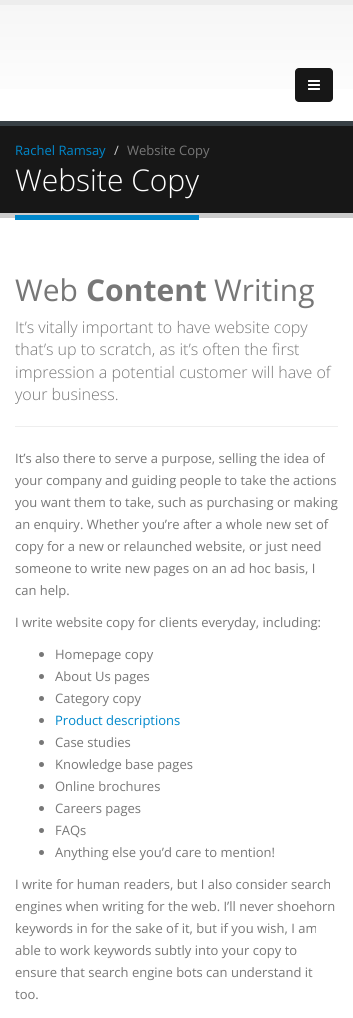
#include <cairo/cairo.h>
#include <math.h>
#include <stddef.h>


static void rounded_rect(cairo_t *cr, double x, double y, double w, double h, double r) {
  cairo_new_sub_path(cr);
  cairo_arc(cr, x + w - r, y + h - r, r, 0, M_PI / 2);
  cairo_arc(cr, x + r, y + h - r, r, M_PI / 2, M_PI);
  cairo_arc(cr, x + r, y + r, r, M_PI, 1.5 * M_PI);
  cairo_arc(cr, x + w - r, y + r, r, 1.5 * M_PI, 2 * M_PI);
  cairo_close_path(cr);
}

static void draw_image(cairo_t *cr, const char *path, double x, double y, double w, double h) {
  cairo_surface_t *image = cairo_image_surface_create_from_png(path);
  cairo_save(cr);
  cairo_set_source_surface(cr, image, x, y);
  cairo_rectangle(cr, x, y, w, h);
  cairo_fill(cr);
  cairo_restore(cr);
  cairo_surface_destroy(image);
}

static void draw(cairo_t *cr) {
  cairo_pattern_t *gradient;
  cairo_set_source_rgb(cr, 1, 1, 1);
  cairo_paint(cr);
  gradient = cairo_pattern_create_linear(177, 5, 177, 121);
  cairo_pattern_add_color_stop_rgba(gradient, 0, 246 / 255.0, 246 / 255.0, 246 / 255.0, 1);
  cairo_pattern_add_color_stop_rgba(gradient, 1, 1, 1, 1, 1);
  cairo_set_source(cr, gradient);
  cairo_pattern_destroy(gradient);
  cairo_rectangle(cr, 0, 5, 353, 84);
  cairo_fill(cr);
  cairo_set_source_rgb(cr, 237 / 255.0, 237 / 255.0, 237 / 255.0);
  cairo_rectangle(cr, 0, 0, 353, 5);
  cairo_fill(cr);
  cairo_set_source_rgb(cr, 23 / 255.0, 23 / 255.0, 23 / 255.0);
  rounded_rect(cr, 295, 68, 38, 34, 4);
  cairo_fill(cr);
  draw_image(cr, "images/1.png", 308, 80, 12, 10);
  cairo_rectangle(cr, 0, 126, 353, 87);
  cairo_fill(cr);
  cairo_set_source_rgb(cr, 56 / 255.0, 64 / 255.0, 69 / 255.0);
  cairo_rectangle(cr, 0, 121, 353, 5);
  cairo_fill(cr);
  cairo_set_source_rgb(cr, 204 / 255.0, 204 / 255.0, 204 / 255.0);
  cairo_rectangle(cr, 0, 213, 353, 5);
  cairo_fill(cr);
  cairo_set_source_rgb(cr, 0, 136 / 255.0, 204 / 255.0);
  cairo_rectangle(cr, 15, 215, 184, 5);
  cairo_fill(cr);
  cairo_set_source_rgb(cr, 238 / 255.0, 238 / 255.0, 238 / 255.0);
  cairo_rectangle(cr, 15, 426, 323, 1);
  cairo_fill(cr);
  cairo_set_source_rgb(cr, 119 / 255.0, 119 / 255.0, 119 / 255.0);
  cairo_arc(cr, 41.5, 654.5, 2.5, 0, 2 * M_PI);
  cairo_fill(cr);
  cairo_arc(cr, 41.5, 676.5, 2.5, 0, 2 * M_PI);
  cairo_fill(cr);
  cairo_arc(cr, 41.5, 698.5, 2.5, 0, 2 * M_PI);
  cairo_fill(cr);
  cairo_arc(cr, 41.5, 720.5, 2.5, 0, 2 * M_PI);
  cairo_fill(cr);
  cairo_arc(cr, 41.5, 742.5, 2.5, 0, 2 * M_PI);
  cairo_fill(cr);
  cairo_arc(cr, 41.5, 764.5, 2.5, 0, 2 * M_PI);
  cairo_fill(cr);
  cairo_arc(cr, 41.5, 786.5, 2.5, 0, 2 * M_PI);
  cairo_fill(cr);
  cairo_arc(cr, 41.5, 808.5, 2.5, 0, 2 * M_PI);
  cairo_fill(cr);
  cairo_arc(cr, 41.5, 830.5, 2.5, 0, 2 * M_PI);
  cairo_fill(cr);
  cairo_arc(cr, 41.5, 852.5, 2.5, 0, 2 * M_PI);
  cairo_fill(cr);
  cairo_select_font_face(cr, "Open Sans", CAIRO_FONT_SLANT_NORMAL, CAIRO_FONT_WEIGHT_NORMAL);
  cairo_set_font_size(cr, 13);
  cairo_set_source_rgb(cr, 0, 136 / 255.0, 204 / 255.0);
  cairo_move_to(cr, 15, 155);
  cairo_show_text(cr, "Rachel Ramsay");
  cairo_set_source_rgb(cr, 204 / 255.0, 204 / 255.0, 204 / 255.0);
  cairo_move_to(cr, 114, 155);
  cairo_show_text(cr, "/");
  cairo_set_source_rgb(cr, 119 / 255.0, 119 / 255.0, 119 / 255.0);
  cairo_move_to(cr, 127, 155);
  cairo_show_text(cr, "Website Copy");
  cairo_select_font_face(cr, "Open Sans Light", CAIRO_FONT_SLANT_NORMAL, CAIRO_FONT_WEIGHT_NORMAL);
  cairo_set_font_size(cr, 30);
  cairo_set_source_rgb(cr, 1, 1, 1);
  cairo_move_to(cr, 15, 191);
  cairo_show_text(cr, "Website Copy");
  cairo_select_font_face(cr, "Open Sans", CAIRO_FONT_SLANT_NORMAL, CAIRO_FONT_WEIGHT_NORMAL);
  cairo_set_source_rgb(cr, 119 / 255.0, 119 / 255.0, 119 / 255.0);
  cairo_move_to(cr, 15, 301);
  cairo_show_text(cr, "Web");
  cairo_select_font_face(cr, "Open Sans", CAIRO_FONT_SLANT_NORMAL, CAIRO_FONT_WEIGHT_BOLD);
  cairo_move_to(cr, 86, 301);
  cairo_show_text(cr, "Content");
  cairo_select_font_face(cr, "Open Sans", CAIRO_FONT_SLANT_NORMAL, CAIRO_FONT_WEIGHT_NORMAL);
  cairo_move_to(cr, 214, 301);
  cairo_show_text(cr, "Writing");
  cairo_select_font_face(cr, "Open Sans Light", CAIRO_FONT_SLANT_NORMAL, CAIRO_FONT_WEIGHT_NORMAL);
  cairo_set_font_size(cr, 16);
  cairo_move_to(cr, 15, 333);
  cairo_show_text(cr, "It’s vitally important to have website copy");
  cairo_move_to(cr, 15, 355);
  cairo_show_text(cr, "that’s up to scratch, as it’s often the first");
  cairo_move_to(cr, 15, 378);
  cairo_show_text(cr, "impression a potential customer will have of");
  cairo_move_to(cr, 15, 400);
  cairo_show_text(cr, "your business.");
  cairo_select_font_face(cr, "Open Sans", CAIRO_FONT_SLANT_NORMAL, CAIRO_FONT_WEIGHT_NORMAL);
  cairo_set_font_size(cr, 13);
  cairo_move_to(cr, 15, 463);
  cairo_show_text(cr, "It’s also there to serve a purpose, selling the idea of");
  cairo_move_to(cr, 15, 485);
  cairo_show_text(cr, "your company and guiding people to take the actions");
  cairo_move_to(cr, 15, 507);
  cairo_show_text(cr, "you want them to take, such as purchasing or making");
  cairo_move_to(cr, 15, 529);
  cairo_show_text(cr, "an enquiry. Whether you’re after a whole new set of");
  cairo_move_to(cr, 15, 551);
  cairo_show_text(cr, "copy for a new or relaunched website, or just need");
  cairo_move_to(cr, 15, 573);
  cairo_show_text(cr, "someone to write new pages on an ad hoc basis, I");
  cairo_move_to(cr, 15, 595);
  cairo_show_text(cr, "can help.");
  cairo_move_to(cr, 15, 627);
  cairo_show_text(cr, "I write website copy for clients everyday, including:");
  cairo_move_to(cr, 55, 659);
  cairo_show_text(cr, "Homepage copy");
  cairo_move_to(cr, 55, 681);
  cairo_show_text(cr, "About Us pages");
  cairo_move_to(cr, 55, 703);
  cairo_show_text(cr, "Category copy");
  cairo_set_source_rgb(cr, 0, 136 / 255.0, 204 / 255.0);
  cairo_move_to(cr, 55, 725);
  cairo_show_text(cr, "Product descriptions");
  cairo_set_source_rgb(cr, 119 / 255.0, 119 / 255.0, 119 / 255.0);
  cairo_move_to(cr, 55, 747);
  cairo_show_text(cr, "Case studies");
  cairo_move_to(cr, 55, 769);
  cairo_show_text(cr, "Knowledge base pages");
  cairo_move_to(cr, 55, 791);
  cairo_show_text(cr, "Online brochures");
  cairo_move_to(cr, 55, 813);
  cairo_show_text(cr, "Careers pages");
  cairo_move_to(cr, 55, 835);
  cairo_show_text(cr, "FAQs");
  cairo_move_to(cr, 55, 857);
  cairo_show_text(cr, "Anything else you’d care to mention!");
  cairo_move_to(cr, 15, 889);
  cairo_show_text(cr, "I write for human readers, but I also consider search");
  cairo_move_to(cr, 15, 911);
  cairo_show_text(cr, "engines when writing for the web. I’ll never shoehorn");
  cairo_move_to(cr, 15, 933);
  cairo_show_text(cr, "keywords in for the sake of it, but if you wish, I am");
  cairo_move_to(cr, 15, 955);
  cairo_show_text(cr, "able to work keywords subtly into your copy to");
  cairo_move_to(cr, 15, 977);
  cairo_show_text(cr, "ensure that search engine bots can understand it");
  cairo_move_to(cr, 15, 999);
  cairo_show_text(cr, "too.");
}

int main(void) {
  cairo_surface_t *surface = cairo_image_surface_create(CAIRO_FORMAT_RGB24, 353, 1018);
  cairo_t *cr = cairo_create(surface);
  cairo_font_options_t *options = cairo_font_options_create();
  cairo_font_options_set_hint_metrics(options, CAIRO_HINT_METRICS_OFF);
  cairo_font_options_set_hint_style(options, CAIRO_HINT_STYLE_NONE);
  cairo_set_font_options(cr, options);
  cairo_set_miter_limit(cr, 4);
  draw(cr);
  cairo_surface_write_to_png(surface, "out.png");
  cairo_font_options_destroy(options);
  cairo_destroy(cr);
  cairo_surface_destroy(surface);
  return 0;
}
